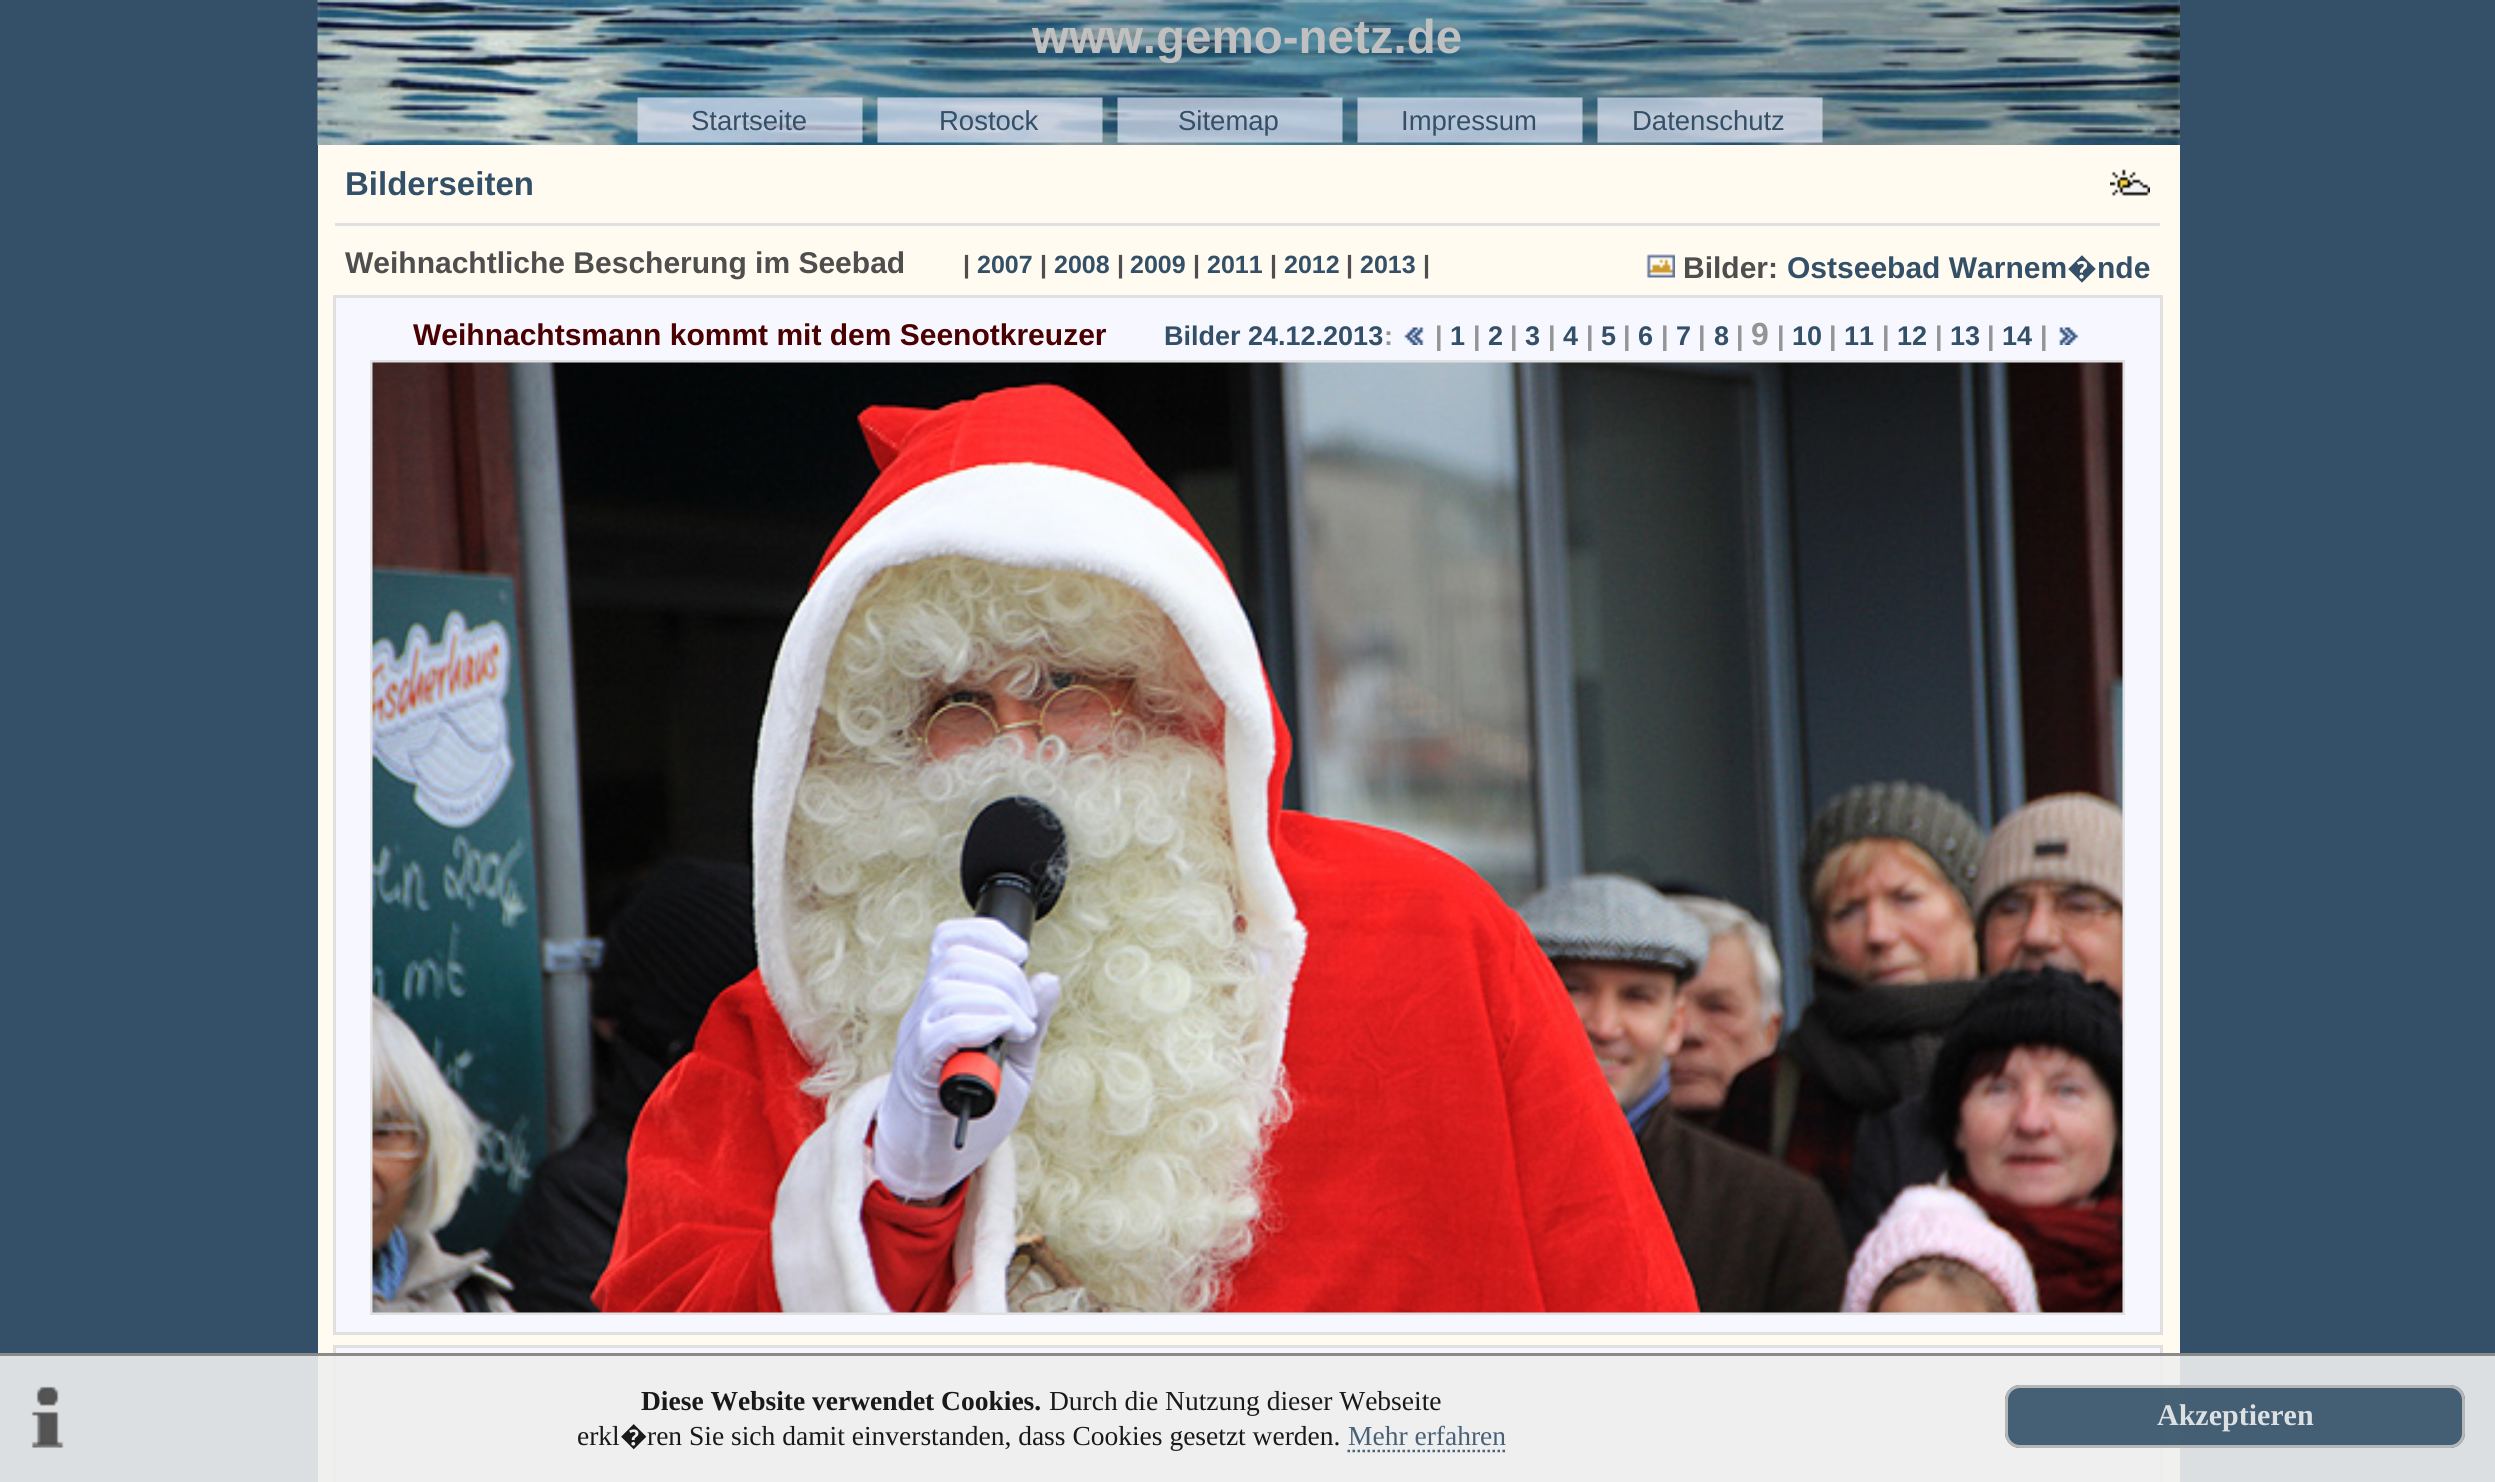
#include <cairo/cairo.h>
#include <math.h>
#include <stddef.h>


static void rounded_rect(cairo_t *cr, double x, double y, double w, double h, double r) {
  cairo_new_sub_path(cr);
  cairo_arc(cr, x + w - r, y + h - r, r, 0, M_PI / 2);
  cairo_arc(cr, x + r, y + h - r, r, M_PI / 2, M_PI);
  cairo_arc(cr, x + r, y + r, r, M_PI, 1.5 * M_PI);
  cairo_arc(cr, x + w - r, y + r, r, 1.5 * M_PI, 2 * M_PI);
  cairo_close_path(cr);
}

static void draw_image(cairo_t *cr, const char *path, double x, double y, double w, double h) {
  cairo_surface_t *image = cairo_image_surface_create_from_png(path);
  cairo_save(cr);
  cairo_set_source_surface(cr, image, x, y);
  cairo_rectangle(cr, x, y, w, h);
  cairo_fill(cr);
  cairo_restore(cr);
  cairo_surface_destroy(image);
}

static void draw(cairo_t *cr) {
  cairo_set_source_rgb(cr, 52 / 255.0, 80 / 255.0, 104 / 255.0);
  cairo_paint(cr);
  draw_image(cr, "images/1.png", 317, 0, 1863, 145);
  draw_image(cr, "images/2.png", 637, 97, 226, 46);
  draw_image(cr, "images/3.png", 877, 97, 226, 46);
  draw_image(cr, "images/4.png", 1117, 97, 226, 46);
  draw_image(cr, "images/5.png", 1357, 97, 226, 46);
  draw_image(cr, "images/6.png", 1597, 97, 226, 46);
  cairo_set_source_rgb(cr, 1, 251 / 255.0, 240 / 255.0);
  cairo_rectangle(cr, 318, 145, 1862, 1337);
  cairo_fill(cr);
  cairo_set_source_rgb(cr, 224 / 255.0, 224 / 255.0, 224 / 255.0);
  cairo_rectangle(cr, 335, 223, 1825, 3);
  cairo_fill(cr);
  draw_image(cr, "images/7.png", 2110, 169, 40, 27);
  draw_image(cr, "images/8.png", 1646, 254, 29, 24);
  cairo_set_source_rgb(cr, 247 / 255.0, 248 / 255.0, 1);
  cairo_rectangle(cr, 334.5, 296.5, 1827, 1037);
  cairo_fill_preserve(cr);
  cairo_set_source_rgb(cr, 224 / 255.0, 224 / 255.0, 224 / 255.0);
  cairo_set_line_width(cr, 3);
  cairo_stroke(cr);
  draw_image(cr, "images/9.png", 1404, 327, 20, 18);
  draw_image(cr, "images/10.png", 2059, 327, 20, 18);
  cairo_rectangle(cr, 371.5, 361.5, 1752, 952);
  cairo_stroke(cr);
  draw_image(cr, "images/11.png", 372, 362, 1751, 951);
  cairo_set_source_rgb(cr, 247 / 255.0, 248 / 255.0, 1);
  cairo_rectangle(cr, 334.5, 1346.5, 1827, 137);
  cairo_fill_preserve(cr);
  cairo_set_source_rgb(cr, 224 / 255.0, 224 / 255.0, 224 / 255.0);
  cairo_stroke(cr);
  cairo_set_source_rgba(cr, 238 / 255.0, 238 / 255.0, 238 / 255.0, 0.9);
  cairo_rectangle(cr, 0, 1353, 2495, 129);
  cairo_fill(cr);
  cairo_set_source_rgba(cr, 128 / 255.0, 128 / 255.0, 128 / 255.0, 0.9);
  cairo_rectangle(cr, 0, 1353, 2495, 3);
  cairo_fill(cr);
  draw_image(cr, "images/12.png", 31, 1386, 33, 62);
  cairo_new_path(cr);
  cairo_move_to(cr, 1347.5, 1451);
  cairo_line_to(cr, 1505, 1451);
  cairo_set_source_rgb(cr, 72 / 255.0, 97 / 255.0, 119 / 255.0);
  cairo_set_line_width(cr, 2.5);
  cairo_set_dash(cr, (double[]){2.5, 2.5}, 2, 0);
  cairo_stroke(cr);
  cairo_set_source_rgba(cr, 52 / 255.0, 80 / 255.0, 104 / 255.0, 0.9);
  rounded_rect(cr, 2005, 1385, 460, 63, 15);
  cairo_fill(cr);
  rounded_rect(cr, 2006.5, 1386.5, 457, 60, 13.5);
  cairo_set_source_rgba(cr, 192 / 255.0, 192 / 255.0, 192 / 255.0, 0.9);
  cairo_set_line_width(cr, 3);
  cairo_set_dash(cr, NULL, 0, 0);
  cairo_stroke(cr);
  cairo_select_font_face(cr, "Liberation Sans", CAIRO_FONT_SLANT_NORMAL, CAIRO_FONT_WEIGHT_BOLD);
  cairo_set_font_size(cr, 47.5);
  cairo_set_source_rgb(cr, 192 / 255.0, 192 / 255.0, 192 / 255.0);
  cairo_move_to(cr, 1032, 53);
  cairo_show_text(cr, "www.gemo-netz.de");
  cairo_select_font_face(cr, "Liberation Sans", CAIRO_FONT_SLANT_NORMAL, CAIRO_FONT_WEIGHT_NORMAL);
  cairo_set_font_size(cr, 27.5);
  cairo_set_source_rgb(cr, 52 / 255.0, 80 / 255.0, 104 / 255.0);
  cairo_move_to(cr, 691, 130);
  cairo_show_text(cr, "Startseite");
  cairo_move_to(cr, 939, 130);
  cairo_show_text(cr, "Rostock");
  cairo_move_to(cr, 1178, 130);
  cairo_show_text(cr, "Sitemap");
  cairo_move_to(cr, 1401, 130);
  cairo_show_text(cr, "Impressum");
  cairo_move_to(cr, 1632, 130);
  cairo_show_text(cr, "Datenschutz");
  cairo_select_font_face(cr, "Liberation Sans", CAIRO_FONT_SLANT_NORMAL, CAIRO_FONT_WEIGHT_BOLD);
  cairo_set_font_size(cr, 33);
  cairo_move_to(cr, 345, 195);
  cairo_show_text(cr, "Bilderseiten");
  cairo_set_font_size(cr, 30);
  cairo_set_source_rgb(cr, 78 / 255.0, 78 / 255.0, 78 / 255.0);
  cairo_move_to(cr, 345, 273);
  cairo_show_text(cr, "Weihnachtliche Bescherung im Seebad");
  cairo_set_font_size(cr, 25);
  cairo_move_to(cr, 963, 273);
  cairo_show_text(cr, "|");
  cairo_set_source_rgb(cr, 52 / 255.0, 80 / 255.0, 104 / 255.0);
  cairo_move_to(cr, 977, 273);
  cairo_show_text(cr, "2007");
  cairo_set_source_rgb(cr, 78 / 255.0, 78 / 255.0, 78 / 255.0);
  cairo_move_to(cr, 1040, 273);
  cairo_show_text(cr, "|");
  cairo_set_source_rgb(cr, 52 / 255.0, 80 / 255.0, 104 / 255.0);
  cairo_move_to(cr, 1054, 273);
  cairo_show_text(cr, "2008");
  cairo_set_source_rgb(cr, 78 / 255.0, 78 / 255.0, 78 / 255.0);
  cairo_move_to(cr, 1117, 273);
  cairo_show_text(cr, "|");
  cairo_set_source_rgb(cr, 52 / 255.0, 80 / 255.0, 104 / 255.0);
  cairo_move_to(cr, 1130, 273);
  cairo_show_text(cr, "2009");
  cairo_set_source_rgb(cr, 78 / 255.0, 78 / 255.0, 78 / 255.0);
  cairo_move_to(cr, 1193, 273);
  cairo_show_text(cr, "|");
  cairo_set_source_rgb(cr, 52 / 255.0, 80 / 255.0, 104 / 255.0);
  cairo_move_to(cr, 1207, 273);
  cairo_show_text(cr, "2011");
  cairo_set_source_rgb(cr, 78 / 255.0, 78 / 255.0, 78 / 255.0);
  cairo_move_to(cr, 1270, 273);
  cairo_show_text(cr, "|");
  cairo_set_source_rgb(cr, 52 / 255.0, 80 / 255.0, 104 / 255.0);
  cairo_move_to(cr, 1284, 273);
  cairo_show_text(cr, "2012");
  cairo_set_source_rgb(cr, 78 / 255.0, 78 / 255.0, 78 / 255.0);
  cairo_move_to(cr, 1346, 273);
  cairo_show_text(cr, "|");
  cairo_set_source_rgb(cr, 52 / 255.0, 80 / 255.0, 104 / 255.0);
  cairo_move_to(cr, 1360, 273);
  cairo_show_text(cr, "2013");
  cairo_set_source_rgb(cr, 78 / 255.0, 78 / 255.0, 78 / 255.0);
  cairo_move_to(cr, 1423, 273);
  cairo_show_text(cr, "|");
  cairo_set_font_size(cr, 30);
  cairo_move_to(cr, 1683, 278);
  cairo_show_text(cr, "Bilder:");
  cairo_set_source_rgb(cr, 52 / 255.0, 80 / 255.0, 104 / 255.0);
  cairo_move_to(cr, 1787, 278);
  cairo_show_text(cr, "Ostseebad Warnem");
  cairo_select_font_face(cr, "Noto Sans", CAIRO_FONT_SLANT_NORMAL, CAIRO_FONT_WEIGHT_BOLD);
  cairo_move_to(cr, 2067, 278);
  cairo_show_text(cr, "�");
  cairo_select_font_face(cr, "Liberation Sans", CAIRO_FONT_SLANT_NORMAL, CAIRO_FONT_WEIGHT_BOLD);
  cairo_move_to(cr, 2097, 278);
  cairo_show_text(cr, "nde");
  cairo_set_source_rgb(cr, 74 / 255.0, 0, 0);
  cairo_move_to(cr, 413, 345);
  cairo_show_text(cr, "Weihnachtsmann kommt mit dem Seenotkreuzer");
  cairo_set_font_size(cr, 27);
  cairo_set_source_rgb(cr, 52 / 255.0, 80 / 255.0, 104 / 255.0);
  cairo_move_to(cr, 1164, 345);
  cairo_show_text(cr, "Bilder 24.12.2013");
  cairo_set_source_rgb(cr, 148 / 255.0, 148 / 255.0, 148 / 255.0);
  cairo_move_to(cr, 1384, 345);
  cairo_show_text(cr, ":");
  cairo_move_to(cr, 1435, 345);
  cairo_show_text(cr, "|");
  cairo_set_source_rgb(cr, 52 / 255.0, 80 / 255.0, 104 / 255.0);
  cairo_move_to(cr, 1450, 345);
  cairo_show_text(cr, "1");
  cairo_set_source_rgb(cr, 148 / 255.0, 148 / 255.0, 148 / 255.0);
  cairo_move_to(cr, 1473, 345);
  cairo_show_text(cr, "|");
  cairo_set_source_rgb(cr, 52 / 255.0, 80 / 255.0, 104 / 255.0);
  cairo_move_to(cr, 1488, 345);
  cairo_show_text(cr, "2");
  cairo_set_source_rgb(cr, 148 / 255.0, 148 / 255.0, 148 / 255.0);
  cairo_move_to(cr, 1510, 345);
  cairo_show_text(cr, "|");
  cairo_set_source_rgb(cr, 52 / 255.0, 80 / 255.0, 104 / 255.0);
  cairo_move_to(cr, 1525, 345);
  cairo_show_text(cr, "3");
  cairo_set_source_rgb(cr, 148 / 255.0, 148 / 255.0, 148 / 255.0);
  cairo_move_to(cr, 1548, 345);
  cairo_show_text(cr, "|");
  cairo_set_source_rgb(cr, 52 / 255.0, 80 / 255.0, 104 / 255.0);
  cairo_move_to(cr, 1563, 345);
  cairo_show_text(cr, "4");
  cairo_set_source_rgb(cr, 148 / 255.0, 148 / 255.0, 148 / 255.0);
  cairo_move_to(cr, 1586, 345);
  cairo_show_text(cr, "|");
  cairo_set_source_rgb(cr, 52 / 255.0, 80 / 255.0, 104 / 255.0);
  cairo_move_to(cr, 1601, 345);
  cairo_show_text(cr, "5");
  cairo_set_source_rgb(cr, 148 / 255.0, 148 / 255.0, 148 / 255.0);
  cairo_move_to(cr, 1623, 345);
  cairo_show_text(cr, "|");
  cairo_set_source_rgb(cr, 52 / 255.0, 80 / 255.0, 104 / 255.0);
  cairo_move_to(cr, 1638, 345);
  cairo_show_text(cr, "6");
  cairo_set_source_rgb(cr, 148 / 255.0, 148 / 255.0, 148 / 255.0);
  cairo_move_to(cr, 1661, 345);
  cairo_show_text(cr, "|");
  cairo_set_source_rgb(cr, 52 / 255.0, 80 / 255.0, 104 / 255.0);
  cairo_move_to(cr, 1676, 345);
  cairo_show_text(cr, "7");
  cairo_set_source_rgb(cr, 148 / 255.0, 148 / 255.0, 148 / 255.0);
  cairo_move_to(cr, 1698, 345);
  cairo_show_text(cr, "|");
  cairo_set_source_rgb(cr, 52 / 255.0, 80 / 255.0, 104 / 255.0);
  cairo_move_to(cr, 1714, 345);
  cairo_show_text(cr, "8");
  cairo_set_source_rgb(cr, 148 / 255.0, 148 / 255.0, 148 / 255.0);
  cairo_move_to(cr, 1736, 345);
  cairo_show_text(cr, "|");
  cairo_set_font_size(cr, 32);
  cairo_move_to(cr, 1751, 345);
  cairo_show_text(cr, "9");
  cairo_set_font_size(cr, 27);
  cairo_move_to(cr, 1777, 345);
  cairo_show_text(cr, "|");
  cairo_set_source_rgb(cr, 52 / 255.0, 80 / 255.0, 104 / 255.0);
  cairo_move_to(cr, 1792, 345);
  cairo_show_text(cr, "10");
  cairo_set_source_rgb(cr, 148 / 255.0, 148 / 255.0, 148 / 255.0);
  cairo_move_to(cr, 1829, 345);
  cairo_show_text(cr, "|");
  cairo_set_source_rgb(cr, 52 / 255.0, 80 / 255.0, 104 / 255.0);
  cairo_move_to(cr, 1844, 345);
  cairo_show_text(cr, "11");
  cairo_set_source_rgb(cr, 148 / 255.0, 148 / 255.0, 148 / 255.0);
  cairo_move_to(cr, 1882, 345);
  cairo_show_text(cr, "|");
  cairo_set_source_rgb(cr, 52 / 255.0, 80 / 255.0, 104 / 255.0);
  cairo_move_to(cr, 1897, 345);
  cairo_show_text(cr, "12");
  cairo_set_source_rgb(cr, 148 / 255.0, 148 / 255.0, 148 / 255.0);
  cairo_move_to(cr, 1935, 345);
  cairo_show_text(cr, "|");
  cairo_set_source_rgb(cr, 52 / 255.0, 80 / 255.0, 104 / 255.0);
  cairo_move_to(cr, 1950, 345);
  cairo_show_text(cr, "13");
  cairo_set_source_rgb(cr, 148 / 255.0, 148 / 255.0, 148 / 255.0);
  cairo_move_to(cr, 1987, 345);
  cairo_show_text(cr, "|");
  cairo_set_source_rgb(cr, 52 / 255.0, 80 / 255.0, 104 / 255.0);
  cairo_move_to(cr, 2002, 345);
  cairo_show_text(cr, "14");
  cairo_set_source_rgb(cr, 148 / 255.0, 148 / 255.0, 148 / 255.0);
  cairo_move_to(cr, 2040, 345);
  cairo_show_text(cr, "|");
  cairo_select_font_face(cr, "Liberation Serif", CAIRO_FONT_SLANT_NORMAL, CAIRO_FONT_WEIGHT_BOLD);
  cairo_set_font_size(cr, 27.5);
  cairo_set_source_rgb(cr, 25 / 255.0, 25 / 255.0, 26 / 255.0);
  cairo_move_to(cr, 641, 1410);
  cairo_show_text(cr, "Diese Website verwendet Cookies.");
  cairo_select_font_face(cr, "Liberation Serif", CAIRO_FONT_SLANT_NORMAL, CAIRO_FONT_WEIGHT_NORMAL);
  cairo_move_to(cr, 1049, 1410);
  cairo_show_text(cr, "Durch die Nutzung dieser Webseite");
  cairo_move_to(cr, 577, 1445);
  cairo_show_text(cr, "erkl");
  cairo_select_font_face(cr, "Noto Sans", CAIRO_FONT_SLANT_NORMAL, CAIRO_FONT_WEIGHT_NORMAL);
  cairo_move_to(cr, 620, 1445);
  cairo_show_text(cr, "�");
  cairo_select_font_face(cr, "Liberation Serif", CAIRO_FONT_SLANT_NORMAL, CAIRO_FONT_WEIGHT_NORMAL);
  cairo_move_to(cr, 647, 1445);
  cairo_show_text(cr, "ren Sie sich damit einverstanden, dass Cookies gesetzt werden.");
  cairo_set_source_rgb(cr, 72 / 255.0, 97 / 255.0, 119 / 255.0);
  cairo_move_to(cr, 1348, 1445);
  cairo_show_text(cr, "Mehr erfahren");
  cairo_select_font_face(cr, "Liberation Serif", CAIRO_FONT_SLANT_NORMAL, CAIRO_FONT_WEIGHT_BOLD);
  cairo_set_font_size(cr, 30);
  cairo_set_source_rgb(cr, 221 / 255.0, 224 / 255.0, 226 / 255.0);
  cairo_move_to(cr, 2157, 1425);
  cairo_show_text(cr, "Akzeptieren");
}

int main(void) {
  cairo_surface_t *surface = cairo_image_surface_create(CAIRO_FORMAT_RGB24, 2495, 1482);
  cairo_t *cr = cairo_create(surface);
  cairo_font_options_t *options = cairo_font_options_create();
  cairo_font_options_set_hint_metrics(options, CAIRO_HINT_METRICS_OFF);
  cairo_font_options_set_hint_style(options, CAIRO_HINT_STYLE_NONE);
  cairo_set_font_options(cr, options);
  cairo_set_miter_limit(cr, 4);
  draw(cr);
  cairo_surface_write_to_png(surface, "out.png");
  cairo_font_options_destroy(options);
  cairo_destroy(cr);
  cairo_surface_destroy(surface);
  return 0;
}
